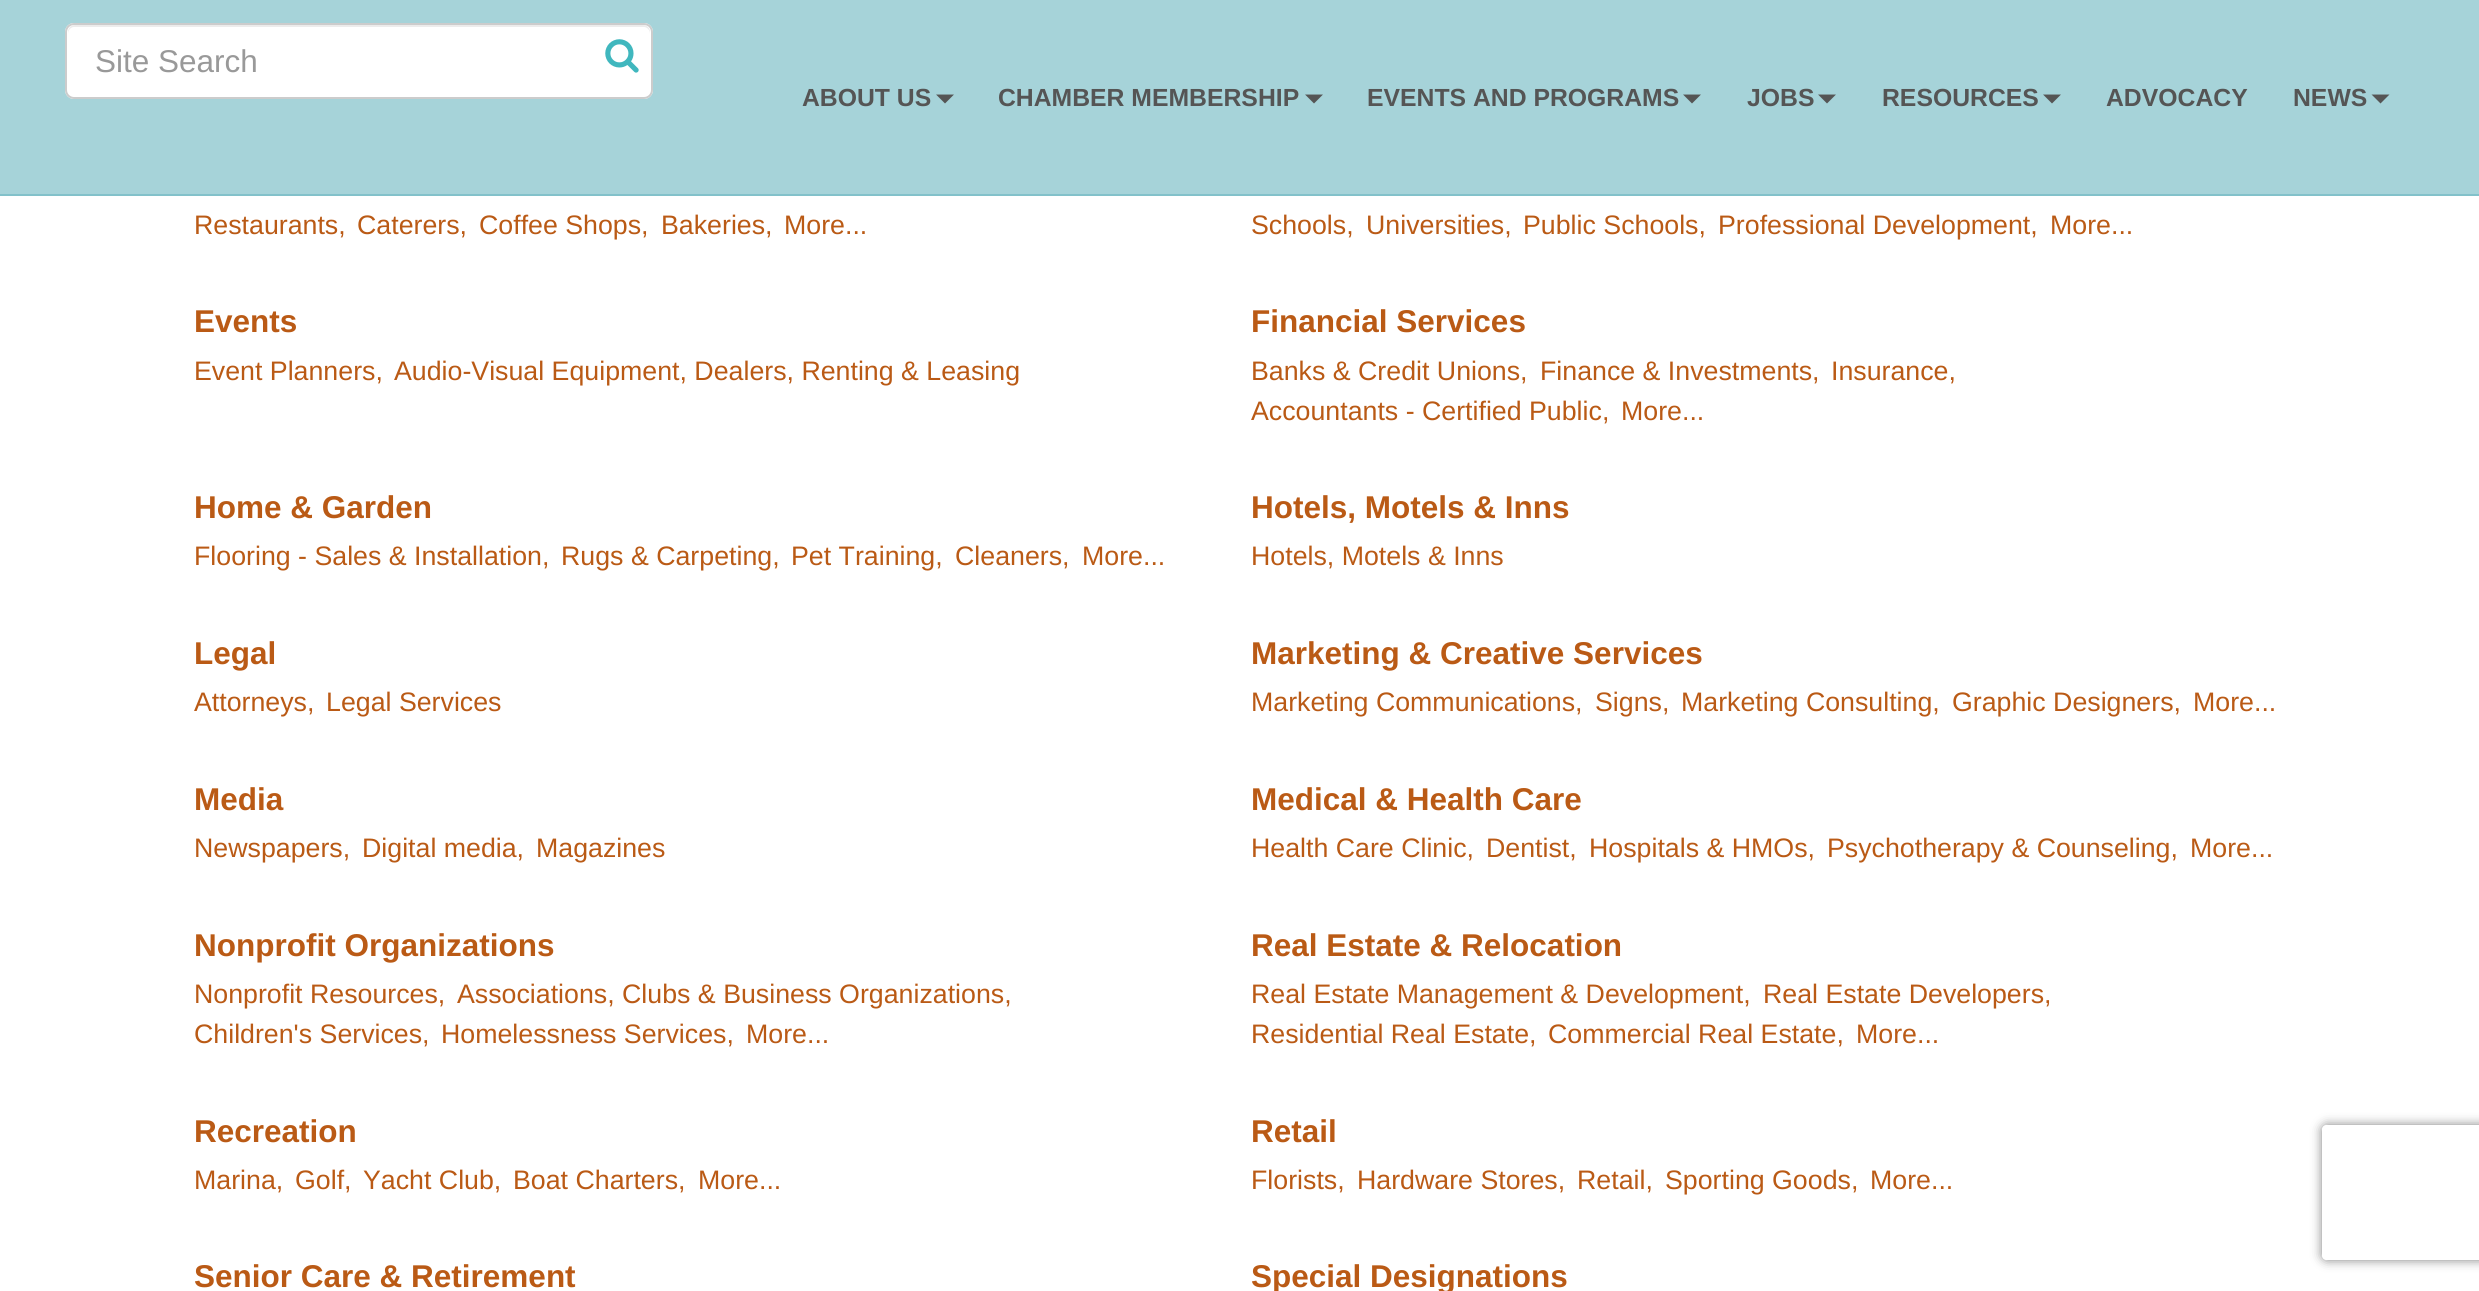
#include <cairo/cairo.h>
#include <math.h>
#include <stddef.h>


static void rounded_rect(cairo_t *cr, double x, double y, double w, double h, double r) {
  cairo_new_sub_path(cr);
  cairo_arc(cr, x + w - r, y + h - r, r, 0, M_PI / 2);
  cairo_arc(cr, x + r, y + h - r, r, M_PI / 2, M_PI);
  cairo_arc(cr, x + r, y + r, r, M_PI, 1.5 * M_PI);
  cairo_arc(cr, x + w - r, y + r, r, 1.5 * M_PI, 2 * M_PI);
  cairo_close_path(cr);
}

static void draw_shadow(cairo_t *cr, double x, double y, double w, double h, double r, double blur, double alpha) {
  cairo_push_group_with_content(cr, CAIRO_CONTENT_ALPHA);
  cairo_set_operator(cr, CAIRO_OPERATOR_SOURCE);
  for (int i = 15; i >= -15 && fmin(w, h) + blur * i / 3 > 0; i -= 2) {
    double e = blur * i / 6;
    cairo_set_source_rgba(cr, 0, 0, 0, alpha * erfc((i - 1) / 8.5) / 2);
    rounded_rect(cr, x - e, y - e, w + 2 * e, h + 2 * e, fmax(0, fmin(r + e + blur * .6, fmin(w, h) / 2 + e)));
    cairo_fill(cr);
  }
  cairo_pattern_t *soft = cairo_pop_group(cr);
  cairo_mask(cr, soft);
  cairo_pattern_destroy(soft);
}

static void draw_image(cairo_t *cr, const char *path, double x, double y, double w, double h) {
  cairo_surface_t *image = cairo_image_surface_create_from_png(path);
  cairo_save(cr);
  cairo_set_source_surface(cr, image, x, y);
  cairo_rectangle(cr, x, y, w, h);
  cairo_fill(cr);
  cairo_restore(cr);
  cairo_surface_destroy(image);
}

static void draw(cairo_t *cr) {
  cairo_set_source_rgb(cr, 1, 1, 1);
  cairo_paint(cr);
  cairo_set_source_rgb(cr, 166 / 255.0, 211 / 255.0, 217 / 255.0);
  cairo_rectangle(cr, 0, 0, 2479, 194);
  cairo_fill(cr);
  cairo_set_source_rgb(cr, 130 / 255.0, 193 / 255.0, 202 / 255.0);
  cairo_rectangle(cr, 0, 194, 2479, 2);
  cairo_fill(cr);
  cairo_set_source_rgb(cr, 1, 1, 1);
  rounded_rect(cr, 65, 23, 588, 76, 9);
  cairo_fill(cr);
  cairo_set_source_rgb(cr, 236 / 255.0, 236 / 255.0, 236 / 255.0);
  cairo_new_path(cr);
  cairo_move_to(cr, 74, 27);
  cairo_line_to(cr, 644, 27);
  cairo_curve_to(cr, 647, 27, 650, 30, 650, 34);
  cairo_line_to(cr, 650, 32);
  cairo_curve_to(cr, 650, 28, 647, 25, 643, 25);
  cairo_line_to(cr, 75, 25);
  cairo_curve_to(cr, 71, 25, 68, 28, 68, 32);
  cairo_line_to(cr, 68, 34);
  cairo_curve_to(cr, 68, 30, 71, 27, 74, 27);
  cairo_close_path(cr);
  cairo_fill(cr);
  rounded_rect(cr, 66, 24, 586, 74, 8);
  cairo_set_source_rgb(cr, 204 / 255.0, 204 / 255.0, 204 / 255.0);
  cairo_stroke(cr);
  draw_image(cr, "images/1.png", 605, 39, 34, 34);
  cairo_set_source_rgb(cr, 85 / 255.0, 85 / 255.0, 85 / 255.0);
  cairo_new_path(cr);
  cairo_move_to(cr, 936, 94.5);
  cairo_line_to(cr, 954, 94.5);
  cairo_line_to(cr, 945, 103.5);
  cairo_close_path(cr);
  cairo_fill(cr);
  cairo_new_path(cr);
  cairo_move_to(cr, 1305, 94.5);
  cairo_line_to(cr, 1323, 94.5);
  cairo_line_to(cr, 1314, 103.5);
  cairo_close_path(cr);
  cairo_fill(cr);
  cairo_new_path(cr);
  cairo_move_to(cr, 1683, 94.5);
  cairo_line_to(cr, 1701, 94.5);
  cairo_line_to(cr, 1692, 103.5);
  cairo_close_path(cr);
  cairo_fill(cr);
  cairo_new_path(cr);
  cairo_move_to(cr, 1818, 94.5);
  cairo_line_to(cr, 1836, 94.5);
  cairo_line_to(cr, 1827, 103.5);
  cairo_close_path(cr);
  cairo_fill(cr);
  cairo_new_path(cr);
  cairo_move_to(cr, 2043, 94.5);
  cairo_line_to(cr, 2061, 94.5);
  cairo_line_to(cr, 2052, 103.5);
  cairo_close_path(cr);
  cairo_fill(cr);
  cairo_new_path(cr);
  cairo_move_to(cr, 2371.5, 94.5);
  cairo_line_to(cr, 2389.5, 94.5);
  cairo_line_to(cr, 2380.5, 103.5);
  cairo_close_path(cr);
  cairo_fill(cr);
  cairo_save(cr);
  cairo_set_fill_rule(cr, CAIRO_FILL_RULE_EVEN_ODD);
  cairo_new_path(cr);
  cairo_move_to(cr, 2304, 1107);
  cairo_line_to(cr, 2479, 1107);
  cairo_line_to(cr, 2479, 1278);
  cairo_line_to(cr, 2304, 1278);
  cairo_close_path(cr);
  cairo_move_to(cr, 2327, 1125);
  cairo_line_to(cr, 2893, 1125);
  cairo_curve_to(cr, 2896, 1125, 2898, 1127, 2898, 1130);
  cairo_line_to(cr, 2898, 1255);
  cairo_curve_to(cr, 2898, 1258, 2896, 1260, 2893, 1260);
  cairo_line_to(cr, 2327, 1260);
  cairo_curve_to(cr, 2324, 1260, 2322, 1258, 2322, 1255);
  cairo_line_to(cr, 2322, 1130);
  cairo_curve_to(cr, 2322, 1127, 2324, 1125, 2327, 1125);
  cairo_close_path(cr);
  cairo_clip(cr);
  cairo_set_source_rgb(cr, 128 / 255.0, 128 / 255.0, 128 / 255.0);
  draw_shadow(cr, 2322, 1125, 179, 135, 5, 5.5, 1);
  cairo_restore(cr);
  cairo_select_font_face(cr, "Liberation Sans", CAIRO_FONT_SLANT_NORMAL, CAIRO_FONT_WEIGHT_NORMAL);
  cairo_set_font_size(cr, 31.5);
  cairo_set_source_rgb(cr, 153 / 255.0, 153 / 255.0, 153 / 255.0);
  cairo_move_to(cr, 95, 72);
  cairo_show_text(cr, "Site Search");
  cairo_select_font_face(cr, "Liberation Sans", CAIRO_FONT_SLANT_NORMAL, CAIRO_FONT_WEIGHT_BOLD);
  cairo_set_font_size(cr, 24.75);
  cairo_set_source_rgb(cr, 85 / 255.0, 85 / 255.0, 85 / 255.0);
  cairo_move_to(cr, 802, 106);
  cairo_show_text(cr, "ABOUT US");
  cairo_move_to(cr, 998, 106);
  cairo_show_text(cr, "CHAMBER MEMBERSHIP");
  cairo_move_to(cr, 1367, 106);
  cairo_show_text(cr, "EVENTS AND PROGRAMS");
  cairo_move_to(cr, 1747, 106);
  cairo_show_text(cr, "JOBS");
  cairo_move_to(cr, 1882, 106);
  cairo_show_text(cr, "RESOURCES");
  cairo_move_to(cr, 2106, 106);
  cairo_show_text(cr, "ADVOCACY");
  cairo_move_to(cr, 2293, 106);
  cairo_show_text(cr, "NEWS");
  cairo_select_font_face(cr, "Liberation Sans", CAIRO_FONT_SLANT_NORMAL, CAIRO_FONT_WEIGHT_NORMAL);
  cairo_set_font_size(cr, 26.75);
  cairo_set_source_rgb(cr, 186 / 255.0, 90 / 255.0, 21 / 255.0);
  cairo_move_to(cr, 194, 234);
  cairo_show_text(cr, "Restaurants,");
  cairo_move_to(cr, 357, 234);
  cairo_show_text(cr, "Caterers,");
  cairo_move_to(cr, 479, 234);
  cairo_show_text(cr, "Coffee Shops,");
  cairo_move_to(cr, 661, 234);
  cairo_show_text(cr, "Bakeries,");
  cairo_move_to(cr, 784, 234);
  cairo_show_text(cr, "More...");
  cairo_move_to(cr, 1251, 234);
  cairo_show_text(cr, "Schools,");
  cairo_move_to(cr, 1366, 234);
  cairo_show_text(cr, "Universities,");
  cairo_move_to(cr, 1523, 234);
  cairo_show_text(cr, "Public Schools,");
  cairo_move_to(cr, 1718, 234);
  cairo_show_text(cr, "Professional Development,");
  cairo_move_to(cr, 2050, 234);
  cairo_show_text(cr, "More...");
  cairo_select_font_face(cr, "Liberation Sans", CAIRO_FONT_SLANT_NORMAL, CAIRO_FONT_WEIGHT_BOLD);
  cairo_set_font_size(cr, 31.5);
  cairo_move_to(cr, 194, 332);
  cairo_show_text(cr, "Events");
  cairo_select_font_face(cr, "Liberation Sans", CAIRO_FONT_SLANT_NORMAL, CAIRO_FONT_WEIGHT_NORMAL);
  cairo_set_font_size(cr, 26.75);
  cairo_move_to(cr, 194, 380);
  cairo_show_text(cr, "Event Planners,");
  cairo_move_to(cr, 394, 380);
  cairo_show_text(cr, "Audio-Visual Equipment, Dealers, Renting & Leasing");
  cairo_select_font_face(cr, "Liberation Sans", CAIRO_FONT_SLANT_NORMAL, CAIRO_FONT_WEIGHT_BOLD);
  cairo_set_font_size(cr, 31.5);
  cairo_move_to(cr, 1251, 332);
  cairo_show_text(cr, "Financial Services");
  cairo_select_font_face(cr, "Liberation Sans", CAIRO_FONT_SLANT_NORMAL, CAIRO_FONT_WEIGHT_NORMAL);
  cairo_set_font_size(cr, 26.75);
  cairo_move_to(cr, 1251, 380);
  cairo_show_text(cr, "Banks & Credit Unions,");
  cairo_move_to(cr, 1540, 380);
  cairo_show_text(cr, "Finance & Investments,");
  cairo_move_to(cr, 1831, 380);
  cairo_show_text(cr, "Insurance,");
  cairo_move_to(cr, 1251, 420);
  cairo_show_text(cr, "Accountants - Certified Public,");
  cairo_move_to(cr, 1621, 420);
  cairo_show_text(cr, "More...");
  cairo_select_font_face(cr, "Liberation Sans", CAIRO_FONT_SLANT_NORMAL, CAIRO_FONT_WEIGHT_BOLD);
  cairo_set_font_size(cr, 31.5);
  cairo_move_to(cr, 194, 518);
  cairo_show_text(cr, "Home & Garden");
  cairo_select_font_face(cr, "Liberation Sans", CAIRO_FONT_SLANT_NORMAL, CAIRO_FONT_WEIGHT_NORMAL);
  cairo_set_font_size(cr, 26.75);
  cairo_move_to(cr, 194, 565);
  cairo_show_text(cr, "Flooring - Sales & Installation,");
  cairo_move_to(cr, 561, 565);
  cairo_show_text(cr, "Rugs & Carpeting,");
  cairo_move_to(cr, 791, 565);
  cairo_show_text(cr, "Pet Training,");
  cairo_move_to(cr, 955, 565);
  cairo_show_text(cr, "Cleaners,");
  cairo_move_to(cr, 1082, 565);
  cairo_show_text(cr, "More...");
  cairo_select_font_face(cr, "Liberation Sans", CAIRO_FONT_SLANT_NORMAL, CAIRO_FONT_WEIGHT_BOLD);
  cairo_set_font_size(cr, 31.5);
  cairo_move_to(cr, 1251, 518);
  cairo_show_text(cr, "Hotels, Motels & Inns");
  cairo_select_font_face(cr, "Liberation Sans", CAIRO_FONT_SLANT_NORMAL, CAIRO_FONT_WEIGHT_NORMAL);
  cairo_set_font_size(cr, 26.75);
  cairo_move_to(cr, 1251, 565);
  cairo_show_text(cr, "Hotels, Motels & Inns");
  cairo_select_font_face(cr, "Liberation Sans", CAIRO_FONT_SLANT_NORMAL, CAIRO_FONT_WEIGHT_BOLD);
  cairo_set_font_size(cr, 31.5);
  cairo_move_to(cr, 194, 664);
  cairo_show_text(cr, "Legal");
  cairo_select_font_face(cr, "Liberation Sans", CAIRO_FONT_SLANT_NORMAL, CAIRO_FONT_WEIGHT_NORMAL);
  cairo_set_font_size(cr, 26.75);
  cairo_move_to(cr, 194, 711);
  cairo_show_text(cr, "Attorneys,");
  cairo_move_to(cr, 326, 711);
  cairo_show_text(cr, "Legal Services");
  cairo_select_font_face(cr, "Liberation Sans", CAIRO_FONT_SLANT_NORMAL, CAIRO_FONT_WEIGHT_BOLD);
  cairo_set_font_size(cr, 31.5);
  cairo_move_to(cr, 1251, 664);
  cairo_show_text(cr, "Marketing & Creative Services");
  cairo_select_font_face(cr, "Liberation Sans", CAIRO_FONT_SLANT_NORMAL, CAIRO_FONT_WEIGHT_NORMAL);
  cairo_set_font_size(cr, 26.75);
  cairo_move_to(cr, 1251, 711);
  cairo_show_text(cr, "Marketing Communications,");
  cairo_move_to(cr, 1595, 711);
  cairo_show_text(cr, "Signs,");
  cairo_move_to(cr, 1681, 711);
  cairo_show_text(cr, "Marketing Consulting,");
  cairo_move_to(cr, 1952, 711);
  cairo_show_text(cr, "Graphic Designers,");
  cairo_move_to(cr, 2193, 711);
  cairo_show_text(cr, "More...");
  cairo_select_font_face(cr, "Liberation Sans", CAIRO_FONT_SLANT_NORMAL, CAIRO_FONT_WEIGHT_BOLD);
  cairo_set_font_size(cr, 31.5);
  cairo_move_to(cr, 194, 810);
  cairo_show_text(cr, "Media");
  cairo_select_font_face(cr, "Liberation Sans", CAIRO_FONT_SLANT_NORMAL, CAIRO_FONT_WEIGHT_NORMAL);
  cairo_set_font_size(cr, 26.75);
  cairo_move_to(cr, 194, 857);
  cairo_show_text(cr, "Newspapers,");
  cairo_move_to(cr, 362, 857);
  cairo_show_text(cr, "Digital media,");
  cairo_move_to(cr, 536, 857);
  cairo_show_text(cr, "Magazines");
  cairo_select_font_face(cr, "Liberation Sans", CAIRO_FONT_SLANT_NORMAL, CAIRO_FONT_WEIGHT_BOLD);
  cairo_set_font_size(cr, 31.5);
  cairo_move_to(cr, 1251, 810);
  cairo_show_text(cr, "Medical & Health Care");
  cairo_select_font_face(cr, "Liberation Sans", CAIRO_FONT_SLANT_NORMAL, CAIRO_FONT_WEIGHT_NORMAL);
  cairo_set_font_size(cr, 26.75);
  cairo_move_to(cr, 1251, 857);
  cairo_show_text(cr, "Health Care Clinic,");
  cairo_move_to(cr, 1486, 857);
  cairo_show_text(cr, "Dentist,");
  cairo_move_to(cr, 1589, 857);
  cairo_show_text(cr, "Hospitals & HMOs,");
  cairo_move_to(cr, 1827, 857);
  cairo_show_text(cr, "Psychotherapy & Counseling,");
  cairo_move_to(cr, 2190, 857);
  cairo_show_text(cr, "More...");
  cairo_select_font_face(cr, "Liberation Sans", CAIRO_FONT_SLANT_NORMAL, CAIRO_FONT_WEIGHT_BOLD);
  cairo_set_font_size(cr, 31.5);
  cairo_move_to(cr, 194, 956);
  cairo_show_text(cr, "Nonprofit Organizations");
  cairo_select_font_face(cr, "Liberation Sans", CAIRO_FONT_SLANT_NORMAL, CAIRO_FONT_WEIGHT_NORMAL);
  cairo_set_font_size(cr, 26.75);
  cairo_move_to(cr, 194, 1003);
  cairo_show_text(cr, "Nonprofit Resources,");
  cairo_move_to(cr, 457, 1003);
  cairo_show_text(cr, "Associations, Clubs & Business Organizations,");
  cairo_move_to(cr, 194, 1043);
  cairo_show_text(cr, "Children's Services,");
  cairo_move_to(cr, 441, 1043);
  cairo_show_text(cr, "Homelessness Services,");
  cairo_move_to(cr, 746, 1043);
  cairo_show_text(cr, "More...");
  cairo_select_font_face(cr, "Liberation Sans", CAIRO_FONT_SLANT_NORMAL, CAIRO_FONT_WEIGHT_BOLD);
  cairo_set_font_size(cr, 31.5);
  cairo_move_to(cr, 1251, 956);
  cairo_show_text(cr, "Real Estate & Relocation");
  cairo_select_font_face(cr, "Liberation Sans", CAIRO_FONT_SLANT_NORMAL, CAIRO_FONT_WEIGHT_NORMAL);
  cairo_set_font_size(cr, 26.75);
  cairo_move_to(cr, 1251, 1003);
  cairo_show_text(cr, "Real Estate Management & Development,");
  cairo_move_to(cr, 1763, 1003);
  cairo_show_text(cr, "Real Estate Developers,");
  cairo_move_to(cr, 1251, 1043);
  cairo_show_text(cr, "Residential Real Estate,");
  cairo_move_to(cr, 1548, 1043);
  cairo_show_text(cr, "Commercial Real Estate,");
  cairo_move_to(cr, 1856, 1043);
  cairo_show_text(cr, "More...");
  cairo_select_font_face(cr, "Liberation Sans", CAIRO_FONT_SLANT_NORMAL, CAIRO_FONT_WEIGHT_BOLD);
  cairo_set_font_size(cr, 31.5);
  cairo_move_to(cr, 194, 1142);
  cairo_show_text(cr, "Recreation");
  cairo_select_font_face(cr, "Liberation Sans", CAIRO_FONT_SLANT_NORMAL, CAIRO_FONT_WEIGHT_NORMAL);
  cairo_set_font_size(cr, 26.75);
  cairo_move_to(cr, 194, 1189);
  cairo_show_text(cr, "Marina,");
  cairo_move_to(cr, 295, 1189);
  cairo_show_text(cr, "Golf,");
  cairo_move_to(cr, 363, 1189);
  cairo_show_text(cr, "Yacht Club,");
  cairo_move_to(cr, 513, 1189);
  cairo_show_text(cr, "Boat Charters,");
  cairo_move_to(cr, 698, 1189);
  cairo_show_text(cr, "More...");
  cairo_select_font_face(cr, "Liberation Sans", CAIRO_FONT_SLANT_NORMAL, CAIRO_FONT_WEIGHT_BOLD);
  cairo_set_font_size(cr, 31.5);
  cairo_move_to(cr, 1251, 1142);
  cairo_show_text(cr, "Retail");
  cairo_select_font_face(cr, "Liberation Sans", CAIRO_FONT_SLANT_NORMAL, CAIRO_FONT_WEIGHT_NORMAL);
  cairo_set_font_size(cr, 26.75);
  cairo_move_to(cr, 1251, 1189);
  cairo_show_text(cr, "Florists,");
  cairo_move_to(cr, 1357, 1189);
  cairo_show_text(cr, "Hardware Stores,");
  cairo_move_to(cr, 1577, 1189);
  cairo_show_text(cr, "Retail,");
  cairo_move_to(cr, 1665, 1189);
  cairo_show_text(cr, "Sporting Goods,");
  cairo_move_to(cr, 1870, 1189);
  cairo_show_text(cr, "More...");
  cairo_select_font_face(cr, "Liberation Sans", CAIRO_FONT_SLANT_NORMAL, CAIRO_FONT_WEIGHT_BOLD);
  cairo_set_font_size(cr, 31.5);
  cairo_move_to(cr, 194, 1287);
  cairo_show_text(cr, "Senior Care & Retirement");
  cairo_move_to(cr, 1251, 1287);
  cairo_show_text(cr, "Special Designations");
}

int main(void) {
  cairo_surface_t *surface = cairo_image_surface_create(CAIRO_FORMAT_RGB24, 2479, 1291);
  cairo_t *cr = cairo_create(surface);
  cairo_font_options_t *options = cairo_font_options_create();
  cairo_font_options_set_hint_metrics(options, CAIRO_HINT_METRICS_OFF);
  cairo_font_options_set_hint_style(options, CAIRO_HINT_STYLE_NONE);
  cairo_set_font_options(cr, options);
  cairo_set_miter_limit(cr, 4);
  draw(cr);
  cairo_surface_write_to_png(surface, "out.png");
  cairo_font_options_destroy(options);
  cairo_destroy(cr);
  cairo_surface_destroy(surface);
  return 0;
}
